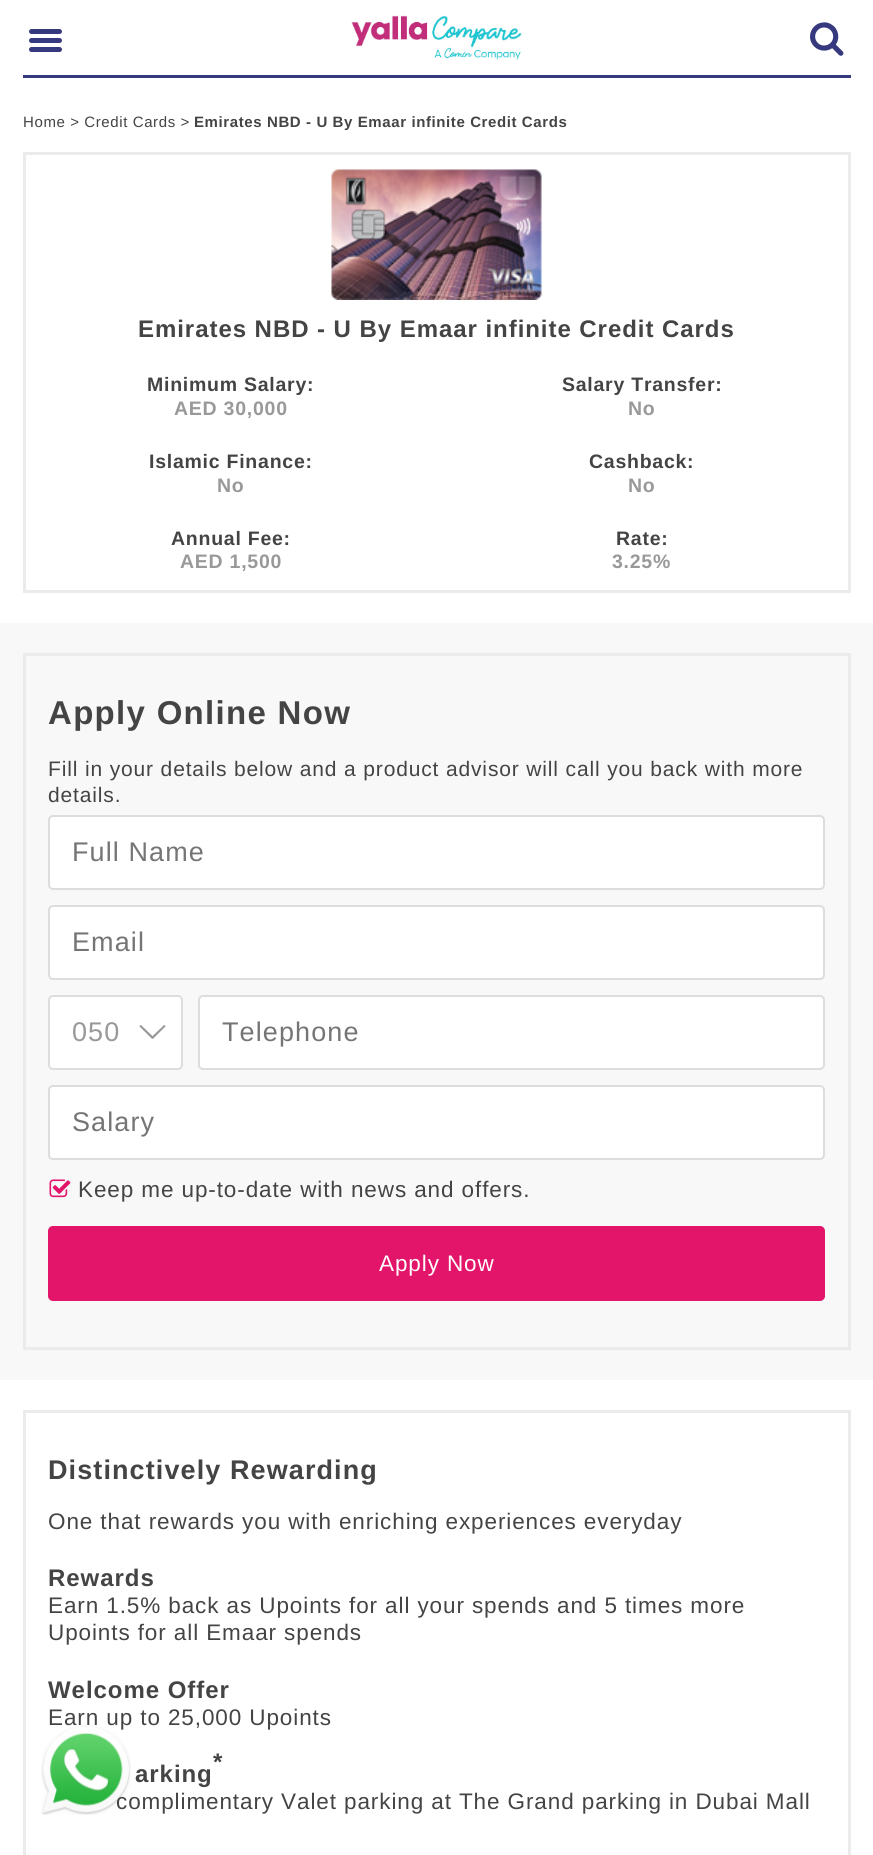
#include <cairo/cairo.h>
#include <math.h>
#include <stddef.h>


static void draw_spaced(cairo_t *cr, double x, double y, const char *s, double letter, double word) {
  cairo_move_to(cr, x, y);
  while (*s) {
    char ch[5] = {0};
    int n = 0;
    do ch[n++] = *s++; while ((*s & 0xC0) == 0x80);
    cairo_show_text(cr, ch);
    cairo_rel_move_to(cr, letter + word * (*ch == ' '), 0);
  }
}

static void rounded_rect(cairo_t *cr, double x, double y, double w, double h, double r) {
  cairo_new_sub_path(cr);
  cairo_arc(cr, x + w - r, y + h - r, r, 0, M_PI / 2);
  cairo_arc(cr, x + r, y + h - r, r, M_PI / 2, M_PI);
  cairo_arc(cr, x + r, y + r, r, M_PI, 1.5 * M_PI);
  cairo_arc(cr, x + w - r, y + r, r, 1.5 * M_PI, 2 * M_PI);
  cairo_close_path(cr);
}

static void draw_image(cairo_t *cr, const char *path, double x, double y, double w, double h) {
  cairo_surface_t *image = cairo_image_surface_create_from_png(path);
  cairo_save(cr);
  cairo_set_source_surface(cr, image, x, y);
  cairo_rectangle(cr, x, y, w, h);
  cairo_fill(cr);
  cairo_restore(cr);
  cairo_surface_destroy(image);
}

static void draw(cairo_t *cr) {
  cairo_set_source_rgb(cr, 1, 1, 1);
  cairo_paint(cr);
  draw_image(cr, "images/1.png", 351, 15, 171, 45);
  cairo_set_source_rgb(cr, 54 / 255.0, 57 / 255.0, 125 / 255.0);
  cairo_rectangle(cr, 23, 75, 828, 3);
  cairo_fill(cr);
  rounded_rect(cr, 29, 29, 33, 5, 2.5);
  cairo_fill(cr);
  rounded_rect(cr, 29, 38, 33, 5, 2.5);
  cairo_fill(cr);
  rounded_rect(cr, 29, 47, 33, 5, 2.5);
  cairo_fill(cr);
  draw_image(cr, "images/2.png", 810, 22, 34, 34);
  cairo_rectangle(cr, 24.5, 153.5, 825, 438);
  cairo_set_source_rgb(cr, 235 / 255.0, 235 / 255.0, 235 / 255.0);
  cairo_set_line_width(cr, 3);
  cairo_stroke(cr);
  draw_image(cr, "images/3.png", 331, 169, 211, 131);
  cairo_set_source_rgb(cr, 248 / 255.0, 248 / 255.0, 248 / 255.0);
  cairo_rectangle(cr, 0, 623, 873, 757);
  cairo_fill(cr);
  cairo_rectangle(cr, 24.5, 654.5, 825, 694);
  cairo_set_source_rgb(cr, 235 / 255.0, 235 / 255.0, 235 / 255.0);
  cairo_stroke(cr);
  cairo_set_source_rgb(cr, 1, 1, 1);
  rounded_rect(cr, 49, 816, 775, 73, 4);
  cairo_fill_preserve(cr);
  cairo_set_source_rgb(cr, 221 / 255.0, 221 / 255.0, 221 / 255.0);
  cairo_set_line_width(cr, 2);
  cairo_stroke(cr);
  cairo_set_source_rgb(cr, 1, 1, 1);
  rounded_rect(cr, 49, 906, 775, 73, 4);
  cairo_fill_preserve(cr);
  cairo_set_source_rgb(cr, 221 / 255.0, 221 / 255.0, 221 / 255.0);
  cairo_stroke(cr);
  cairo_set_source_rgb(cr, 1, 1, 1);
  rounded_rect(cr, 49, 996, 133, 73, 4);
  cairo_fill_preserve(cr);
  cairo_set_source_rgb(cr, 221 / 255.0, 221 / 255.0, 221 / 255.0);
  cairo_stroke(cr);
  draw_image(cr, "images/4.png", 139, 1025, 27, 14);
  cairo_set_source_rgb(cr, 1, 1, 1);
  rounded_rect(cr, 199, 996, 625, 73, 4);
  cairo_fill_preserve(cr);
  cairo_set_source_rgb(cr, 221 / 255.0, 221 / 255.0, 221 / 255.0);
  cairo_stroke(cr);
  cairo_set_source_rgb(cr, 1, 1, 1);
  rounded_rect(cr, 49, 1086, 775, 73, 4);
  cairo_fill_preserve(cr);
  cairo_set_source_rgb(cr, 221 / 255.0, 221 / 255.0, 221 / 255.0);
  cairo_stroke(cr);
  draw_image(cr, "images/5.png", 49, 1179, 22, 19);
  cairo_set_source_rgb(cr, 226 / 255.0, 21 / 255.0, 107 / 255.0);
  rounded_rect(cr, 48, 1226, 777, 75, 5);
  cairo_fill(cr);
  cairo_rectangle(cr, 24.5, 1411.5, 825, 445);
  cairo_set_source_rgb(cr, 235 / 255.0, 235 / 255.0, 235 / 255.0);
  cairo_set_line_width(cr, 3);
  cairo_stroke(cr);
  cairo_select_font_face(cr, "Liberation Sans", CAIRO_FONT_SLANT_NORMAL, CAIRO_FONT_WEIGHT_NORMAL);
  cairo_set_font_size(cr, 15);
  cairo_set_source_rgb(cr, 68 / 255.0, 68 / 255.0, 68 / 255.0);
  draw_spaced(cr, 23, 127, "Home > Credit Cards >", 0.6, 0);
  cairo_select_font_face(cr, "Liberation Sans", CAIRO_FONT_SLANT_NORMAL, CAIRO_FONT_WEIGHT_BOLD);
  draw_spaced(cr, 194, 127, "Emirates NBD - U By Emaar infinite Credit Cards", 0.6, 0);
  cairo_set_font_size(cr, 24);
  draw_spaced(cr, 138, 337, "Emirates NBD - U By Emaar infinite Credit Cards", 0.95, 0);
  cairo_set_font_size(cr, 19.5);
  draw_spaced(cr, 147, 391, "Minimum Salary:", 0.75, 0);
  cairo_set_source_rgb(cr, 153 / 255.0, 153 / 255.0, 153 / 255.0);
  draw_spaced(cr, 174, 415, "AED 30,000", 0.75, 0);
  cairo_set_source_rgb(cr, 68 / 255.0, 68 / 255.0, 68 / 255.0);
  draw_spaced(cr, 562, 391, "Salary Transfer:", 0.75, 0);
  cairo_set_source_rgb(cr, 153 / 255.0, 153 / 255.0, 153 / 255.0);
  draw_spaced(cr, 628, 415, "No", 0.75, 0);
  cairo_set_source_rgb(cr, 68 / 255.0, 68 / 255.0, 68 / 255.0);
  draw_spaced(cr, 149, 468, "Islamic Finance:", 0.75, 0);
  cairo_set_source_rgb(cr, 153 / 255.0, 153 / 255.0, 153 / 255.0);
  draw_spaced(cr, 217, 492, "No", 0.75, 0);
  cairo_set_source_rgb(cr, 68 / 255.0, 68 / 255.0, 68 / 255.0);
  draw_spaced(cr, 589, 468, "Cashback:", 0.75, 0);
  cairo_set_source_rgb(cr, 153 / 255.0, 153 / 255.0, 153 / 255.0);
  draw_spaced(cr, 628, 492, "No", 0.75, 0);
  cairo_set_source_rgb(cr, 68 / 255.0, 68 / 255.0, 68 / 255.0);
  draw_spaced(cr, 171, 545, "Annual Fee:", 0.75, 0);
  cairo_set_source_rgb(cr, 153 / 255.0, 153 / 255.0, 153 / 255.0);
  draw_spaced(cr, 180, 568, "AED 1,500", 0.75, 0);
  cairo_set_source_rgb(cr, 68 / 255.0, 68 / 255.0, 68 / 255.0);
  draw_spaced(cr, 616, 545, "Rate:", 0.75, 0);
  cairo_set_source_rgb(cr, 153 / 255.0, 153 / 255.0, 153 / 255.0);
  draw_spaced(cr, 612, 568, "3.25%", 0.75, 0);
  cairo_set_font_size(cr, 33);
  cairo_set_source_rgb(cr, 68 / 255.0, 68 / 255.0, 68 / 255.0);
  draw_spaced(cr, 48, 724, "Apply Online Now", 1.3, 0);
  cairo_select_font_face(cr, "Liberation Sans", CAIRO_FONT_SLANT_NORMAL, CAIRO_FONT_WEIGHT_NORMAL);
  cairo_set_font_size(cr, 21);
  draw_spaced(cr, 48, 776, "Fill in your details below and a product advisor will call you back with more", 0.85, 0);
  draw_spaced(cr, 48, 802, "details.", 0.85, 0);
  cairo_set_font_size(cr, 27);
  cairo_set_source_rgb(cr, 117 / 255.0, 117 / 255.0, 117 / 255.0);
  draw_spaced(cr, 72, 861, "Full Name", 1.1, 0);
  draw_spaced(cr, 72, 951, "Email", 1.1, 0);
  cairo_set_source_rgb(cr, 153 / 255.0, 153 / 255.0, 153 / 255.0);
  draw_spaced(cr, 72, 1041, "050", 1.1, 0);
  cairo_set_source_rgb(cr, 117 / 255.0, 117 / 255.0, 117 / 255.0);
  draw_spaced(cr, 222, 1041, "Telephone", 1.1, 0);
  draw_spaced(cr, 72, 1131, "Salary", 1.1, 0);
  cairo_set_font_size(cr, 22.5);
  cairo_set_source_rgb(cr, 68 / 255.0, 68 / 255.0, 68 / 255.0);
  draw_spaced(cr, 78, 1197, "Keep me up-to-date with news and offers.", 0.9, 0);
  cairo_set_source_rgb(cr, 1, 1, 1);
  draw_spaced(cr, 379, 1271, "Apply Now", 0.9, 0);
  cairo_select_font_face(cr, "Liberation Sans", CAIRO_FONT_SLANT_NORMAL, CAIRO_FONT_WEIGHT_BOLD);
  cairo_set_font_size(cr, 27);
  cairo_set_source_rgb(cr, 68 / 255.0, 68 / 255.0, 68 / 255.0);
  draw_spaced(cr, 48, 1479, "Distinctively Rewarding", 1.1, 0);
  cairo_select_font_face(cr, "Liberation Sans", CAIRO_FONT_SLANT_NORMAL, CAIRO_FONT_WEIGHT_NORMAL);
  cairo_set_font_size(cr, 22.5);
  draw_spaced(cr, 48, 1529, "One that rewards you with enriching experiences everyday", 0.9, 0);
  cairo_select_font_face(cr, "Liberation Sans", CAIRO_FONT_SLANT_NORMAL, CAIRO_FONT_WEIGHT_BOLD);
  cairo_set_font_size(cr, 24);
  draw_spaced(cr, 48, 1586, "Rewards", 0.95, 0);
  cairo_select_font_face(cr, "Liberation Sans", CAIRO_FONT_SLANT_NORMAL, CAIRO_FONT_WEIGHT_NORMAL);
  cairo_set_font_size(cr, 22.5);
  draw_spaced(cr, 48, 1613, "Earn 1.5% back as Upoints for all your spends and 5 times more", 0.9, 0);
  draw_spaced(cr, 48, 1640, "Upoints for all Emaar spends", 0.9, 0);
  cairo_select_font_face(cr, "Liberation Sans", CAIRO_FONT_SLANT_NORMAL, CAIRO_FONT_WEIGHT_BOLD);
  cairo_set_font_size(cr, 24);
  draw_spaced(cr, 48, 1698, "Welcome Offer", 0.95, 0);
  cairo_select_font_face(cr, "Liberation Sans", CAIRO_FONT_SLANT_NORMAL, CAIRO_FONT_WEIGHT_NORMAL);
  cairo_set_font_size(cr, 22.5);
  draw_spaced(cr, 48, 1725, "Earn up to 25,000 Upoints", 0.9, 0);
  cairo_select_font_face(cr, "Liberation Sans", CAIRO_FONT_SLANT_NORMAL, CAIRO_FONT_WEIGHT_BOLD);
  cairo_set_font_size(cr, 24);
  draw_spaced(cr, 213, 1770, "*", 0.95, 0);
  draw_spaced(cr, 135, 1782, "arking", 0.95, 0);
  cairo_select_font_face(cr, "Liberation Sans", CAIRO_FONT_SLANT_NORMAL, CAIRO_FONT_WEIGHT_NORMAL);
  cairo_set_font_size(cr, 22.5);
  draw_spaced(cr, 116, 1809, "complimentary Valet parking at The Grand parking in Dubai Mall", 0.9, 0);
  draw_image(cr, "images/6.png", 41, 1725, 90, 90);
}

int main(void) {
  cairo_surface_t *surface = cairo_image_surface_create(CAIRO_FORMAT_RGB24, 873, 1855);
  cairo_t *cr = cairo_create(surface);
  cairo_font_options_t *options = cairo_font_options_create();
  cairo_font_options_set_hint_metrics(options, CAIRO_HINT_METRICS_OFF);
  cairo_font_options_set_hint_style(options, CAIRO_HINT_STYLE_NONE);
  cairo_set_font_options(cr, options);
  cairo_set_miter_limit(cr, 4);
  draw(cr);
  cairo_surface_write_to_png(surface, "out.png");
  cairo_font_options_destroy(options);
  cairo_destroy(cr);
  cairo_surface_destroy(surface);
  return 0;
}
